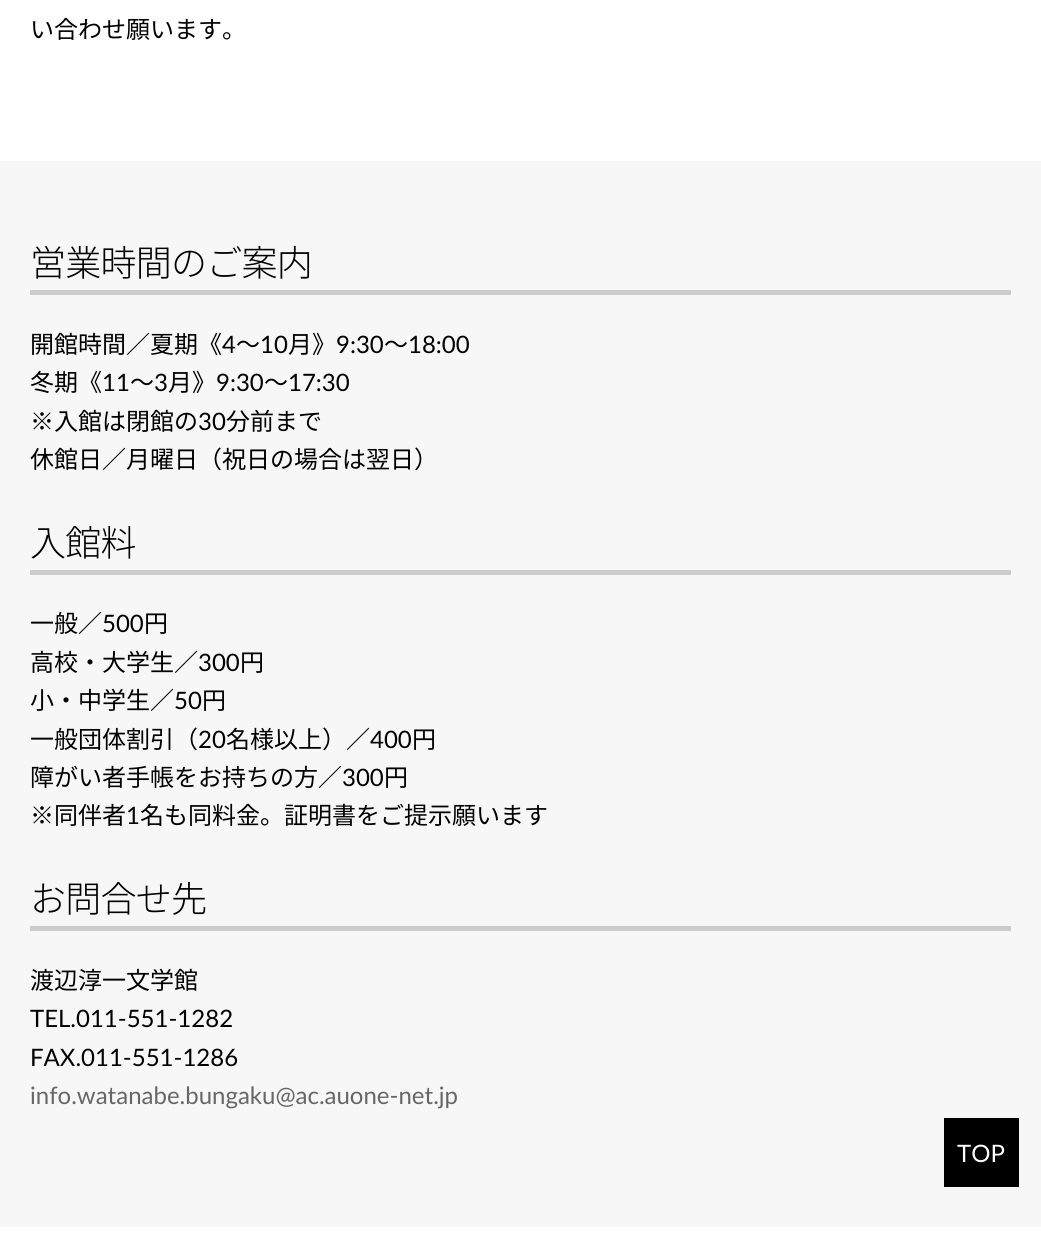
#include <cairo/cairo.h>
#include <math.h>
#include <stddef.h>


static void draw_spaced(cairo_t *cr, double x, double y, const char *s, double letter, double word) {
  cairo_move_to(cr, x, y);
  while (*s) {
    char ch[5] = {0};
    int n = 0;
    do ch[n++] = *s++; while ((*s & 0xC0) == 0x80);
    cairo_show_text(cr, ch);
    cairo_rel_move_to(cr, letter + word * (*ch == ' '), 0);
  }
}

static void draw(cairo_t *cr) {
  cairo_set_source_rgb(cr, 1, 1, 1);
  cairo_paint(cr);
  cairo_set_source_rgb(cr, 247 / 255.0, 247 / 255.0, 247 / 255.0);
  cairo_rectangle(cr, 0, 161, 1041, 1066);
  cairo_fill(cr);
  cairo_set_source_rgb(cr, 204 / 255.0, 204 / 255.0, 204 / 255.0);
  cairo_rectangle(cr, 30, 290, 981, 5);
  cairo_fill(cr);
  cairo_rectangle(cr, 30, 570, 981, 5);
  cairo_fill(cr);
  cairo_rectangle(cr, 30, 926, 981, 5);
  cairo_fill(cr);
  cairo_set_source_rgb(cr, 0, 0, 0);
  cairo_rectangle(cr, 944, 1118, 75, 69);
  cairo_fill(cr);
  cairo_select_font_face(cr, "Noto Sans JP", CAIRO_FONT_SLANT_NORMAL, CAIRO_FONT_WEIGHT_NORMAL);
  cairo_set_font_size(cr, 24);
  cairo_move_to(cr, 30, 38);
  cairo_show_text(cr, "い合わせ願います。");
  cairo_select_font_face(cr, "Noto Sans JP Light", CAIRO_FONT_SLANT_NORMAL, CAIRO_FONT_WEIGHT_NORMAL);
  cairo_set_font_size(cr, 36);
  draw_spaced(cr, 30, 276, "営業時間のご案内", -0.75, 0);
  cairo_select_font_face(cr, "Noto Sans JP", CAIRO_FONT_SLANT_NORMAL, CAIRO_FONT_WEIGHT_NORMAL);
  cairo_set_font_size(cr, 24);
  cairo_move_to(cr, 30, 353);
  cairo_show_text(cr, "開館時間／夏期《");
  cairo_select_font_face(cr, "Lato", CAIRO_FONT_SLANT_NORMAL, CAIRO_FONT_WEIGHT_NORMAL);
  cairo_move_to(cr, 222, 353);
  cairo_show_text(cr, "4");
  cairo_select_font_face(cr, "Noto Sans JP", CAIRO_FONT_SLANT_NORMAL, CAIRO_FONT_WEIGHT_NORMAL);
  cairo_move_to(cr, 236, 353);
  cairo_show_text(cr, "～");
  cairo_select_font_face(cr, "Lato", CAIRO_FONT_SLANT_NORMAL, CAIRO_FONT_WEIGHT_NORMAL);
  cairo_move_to(cr, 260, 353);
  cairo_show_text(cr, "10");
  cairo_select_font_face(cr, "Noto Sans JP", CAIRO_FONT_SLANT_NORMAL, CAIRO_FONT_WEIGHT_NORMAL);
  cairo_move_to(cr, 288, 353);
  cairo_show_text(cr, "月》");
  cairo_select_font_face(cr, "Lato", CAIRO_FONT_SLANT_NORMAL, CAIRO_FONT_WEIGHT_NORMAL);
  cairo_move_to(cr, 336, 353);
  cairo_show_text(cr, "9:30");
  cairo_select_font_face(cr, "Noto Sans JP", CAIRO_FONT_SLANT_NORMAL, CAIRO_FONT_WEIGHT_NORMAL);
  cairo_move_to(cr, 384, 353);
  cairo_show_text(cr, "～");
  cairo_select_font_face(cr, "Lato", CAIRO_FONT_SLANT_NORMAL, CAIRO_FONT_WEIGHT_NORMAL);
  cairo_move_to(cr, 408, 353);
  cairo_show_text(cr, "18:00");
  cairo_select_font_face(cr, "Noto Sans JP", CAIRO_FONT_SLANT_NORMAL, CAIRO_FONT_WEIGHT_NORMAL);
  cairo_move_to(cr, 30, 391);
  cairo_show_text(cr, "冬期《");
  cairo_select_font_face(cr, "Lato", CAIRO_FONT_SLANT_NORMAL, CAIRO_FONT_WEIGHT_NORMAL);
  cairo_move_to(cr, 102, 391);
  cairo_show_text(cr, "11");
  cairo_select_font_face(cr, "Noto Sans JP", CAIRO_FONT_SLANT_NORMAL, CAIRO_FONT_WEIGHT_NORMAL);
  cairo_move_to(cr, 130, 391);
  cairo_show_text(cr, "～");
  cairo_select_font_face(cr, "Lato", CAIRO_FONT_SLANT_NORMAL, CAIRO_FONT_WEIGHT_NORMAL);
  cairo_move_to(cr, 154, 391);
  cairo_show_text(cr, "3");
  cairo_select_font_face(cr, "Noto Sans JP", CAIRO_FONT_SLANT_NORMAL, CAIRO_FONT_WEIGHT_NORMAL);
  cairo_move_to(cr, 168, 391);
  cairo_show_text(cr, "月》");
  cairo_select_font_face(cr, "Lato", CAIRO_FONT_SLANT_NORMAL, CAIRO_FONT_WEIGHT_NORMAL);
  cairo_move_to(cr, 216, 391);
  cairo_show_text(cr, "9:30");
  cairo_select_font_face(cr, "Noto Sans JP", CAIRO_FONT_SLANT_NORMAL, CAIRO_FONT_WEIGHT_NORMAL);
  cairo_move_to(cr, 264, 391);
  cairo_show_text(cr, "～");
  cairo_select_font_face(cr, "Lato", CAIRO_FONT_SLANT_NORMAL, CAIRO_FONT_WEIGHT_NORMAL);
  cairo_move_to(cr, 288, 391);
  cairo_show_text(cr, "17:30");
  cairo_select_font_face(cr, "Noto Sans JP", CAIRO_FONT_SLANT_NORMAL, CAIRO_FONT_WEIGHT_NORMAL);
  cairo_move_to(cr, 30, 430);
  cairo_show_text(cr, "※入館は閉館の");
  cairo_select_font_face(cr, "Lato", CAIRO_FONT_SLANT_NORMAL, CAIRO_FONT_WEIGHT_NORMAL);
  cairo_move_to(cr, 198, 430);
  cairo_show_text(cr, "30");
  cairo_select_font_face(cr, "Noto Sans JP", CAIRO_FONT_SLANT_NORMAL, CAIRO_FONT_WEIGHT_NORMAL);
  cairo_move_to(cr, 226, 430);
  cairo_show_text(cr, "分前まで");
  cairo_move_to(cr, 30, 468);
  cairo_show_text(cr, "休館日／月曜日（祝日の場合は翌日）");
  cairo_select_font_face(cr, "Noto Sans JP Light", CAIRO_FONT_SLANT_NORMAL, CAIRO_FONT_WEIGHT_NORMAL);
  cairo_set_font_size(cr, 36);
  draw_spaced(cr, 30, 556, "入館料", -0.75, 0);
  cairo_select_font_face(cr, "Noto Sans JP", CAIRO_FONT_SLANT_NORMAL, CAIRO_FONT_WEIGHT_NORMAL);
  cairo_set_font_size(cr, 24);
  cairo_move_to(cr, 30, 632);
  cairo_show_text(cr, "一般／");
  cairo_select_font_face(cr, "Lato", CAIRO_FONT_SLANT_NORMAL, CAIRO_FONT_WEIGHT_NORMAL);
  cairo_move_to(cr, 102, 632);
  cairo_show_text(cr, "500");
  cairo_select_font_face(cr, "Noto Sans JP", CAIRO_FONT_SLANT_NORMAL, CAIRO_FONT_WEIGHT_NORMAL);
  cairo_move_to(cr, 144, 632);
  cairo_show_text(cr, "円");
  cairo_move_to(cr, 30, 671);
  cairo_show_text(cr, "高校・大学生／");
  cairo_select_font_face(cr, "Lato", CAIRO_FONT_SLANT_NORMAL, CAIRO_FONT_WEIGHT_NORMAL);
  cairo_move_to(cr, 198, 671);
  cairo_show_text(cr, "300");
  cairo_select_font_face(cr, "Noto Sans JP", CAIRO_FONT_SLANT_NORMAL, CAIRO_FONT_WEIGHT_NORMAL);
  cairo_move_to(cr, 240, 671);
  cairo_show_text(cr, "円");
  cairo_move_to(cr, 30, 709);
  cairo_show_text(cr, "小・中学生／");
  cairo_select_font_face(cr, "Lato", CAIRO_FONT_SLANT_NORMAL, CAIRO_FONT_WEIGHT_NORMAL);
  cairo_move_to(cr, 174, 709);
  cairo_show_text(cr, "50");
  cairo_select_font_face(cr, "Noto Sans JP", CAIRO_FONT_SLANT_NORMAL, CAIRO_FONT_WEIGHT_NORMAL);
  cairo_move_to(cr, 202, 709);
  cairo_show_text(cr, "円");
  cairo_move_to(cr, 30, 748);
  cairo_show_text(cr, "一般団体割引（");
  cairo_select_font_face(cr, "Lato", CAIRO_FONT_SLANT_NORMAL, CAIRO_FONT_WEIGHT_NORMAL);
  cairo_move_to(cr, 198, 748);
  cairo_show_text(cr, "20");
  cairo_select_font_face(cr, "Noto Sans JP", CAIRO_FONT_SLANT_NORMAL, CAIRO_FONT_WEIGHT_NORMAL);
  cairo_move_to(cr, 226, 748);
  cairo_show_text(cr, "名様以上）／");
  cairo_select_font_face(cr, "Lato", CAIRO_FONT_SLANT_NORMAL, CAIRO_FONT_WEIGHT_NORMAL);
  cairo_move_to(cr, 370, 748);
  cairo_show_text(cr, "400");
  cairo_select_font_face(cr, "Noto Sans JP", CAIRO_FONT_SLANT_NORMAL, CAIRO_FONT_WEIGHT_NORMAL);
  cairo_move_to(cr, 412, 748);
  cairo_show_text(cr, "円");
  cairo_move_to(cr, 30, 786);
  cairo_show_text(cr, "障がい者手帳をお持ちの方／");
  cairo_select_font_face(cr, "Lato", CAIRO_FONT_SLANT_NORMAL, CAIRO_FONT_WEIGHT_NORMAL);
  cairo_move_to(cr, 342, 786);
  cairo_show_text(cr, "300");
  cairo_select_font_face(cr, "Noto Sans JP", CAIRO_FONT_SLANT_NORMAL, CAIRO_FONT_WEIGHT_NORMAL);
  cairo_move_to(cr, 384, 786);
  cairo_show_text(cr, "円");
  cairo_move_to(cr, 30, 824);
  cairo_show_text(cr, "※同伴者");
  cairo_select_font_face(cr, "Lato", CAIRO_FONT_SLANT_NORMAL, CAIRO_FONT_WEIGHT_NORMAL);
  cairo_move_to(cr, 126, 824);
  cairo_show_text(cr, "1");
  cairo_select_font_face(cr, "Noto Sans JP", CAIRO_FONT_SLANT_NORMAL, CAIRO_FONT_WEIGHT_NORMAL);
  cairo_move_to(cr, 140, 824);
  cairo_show_text(cr, "名も同料金。証明書をご提示願います");
  cairo_select_font_face(cr, "Noto Sans JP Light", CAIRO_FONT_SLANT_NORMAL, CAIRO_FONT_WEIGHT_NORMAL);
  cairo_set_font_size(cr, 36);
  draw_spaced(cr, 30, 912, "お問合せ先", -0.75, 0);
  cairo_select_font_face(cr, "Noto Sans JP", CAIRO_FONT_SLANT_NORMAL, CAIRO_FONT_WEIGHT_NORMAL);
  cairo_set_font_size(cr, 24);
  cairo_move_to(cr, 30, 989);
  cairo_show_text(cr, "渡辺淳一文学館");
  cairo_select_font_face(cr, "Lato", CAIRO_FONT_SLANT_NORMAL, CAIRO_FONT_WEIGHT_NORMAL);
  cairo_move_to(cr, 30, 1027);
  cairo_show_text(cr, "TEL.011-551-1282");
  cairo_move_to(cr, 30, 1066);
  cairo_show_text(cr, "FAX.011-551-1286");
  cairo_set_source_rgb(cr, 102 / 255.0, 102 / 255.0, 102 / 255.0);
  cairo_move_to(cr, 30, 1104);
  cairo_show_text(cr, "info.watanabe.bungaku@ac.auone-net.jp");
  cairo_set_source_rgb(cr, 1, 1, 1);
  cairo_move_to(cr, 957, 1162);
  cairo_show_text(cr, "TOP");
}

int main(void) {
  cairo_surface_t *surface = cairo_image_surface_create(CAIRO_FORMAT_RGB24, 1041, 1246);
  cairo_t *cr = cairo_create(surface);
  cairo_font_options_t *options = cairo_font_options_create();
  cairo_font_options_set_hint_metrics(options, CAIRO_HINT_METRICS_OFF);
  cairo_font_options_set_hint_style(options, CAIRO_HINT_STYLE_NONE);
  cairo_set_font_options(cr, options);
  cairo_set_miter_limit(cr, 4);
  draw(cr);
  cairo_surface_write_to_png(surface, "out.png");
  cairo_font_options_destroy(options);
  cairo_destroy(cr);
  cairo_surface_destroy(surface);
  return 0;
}
